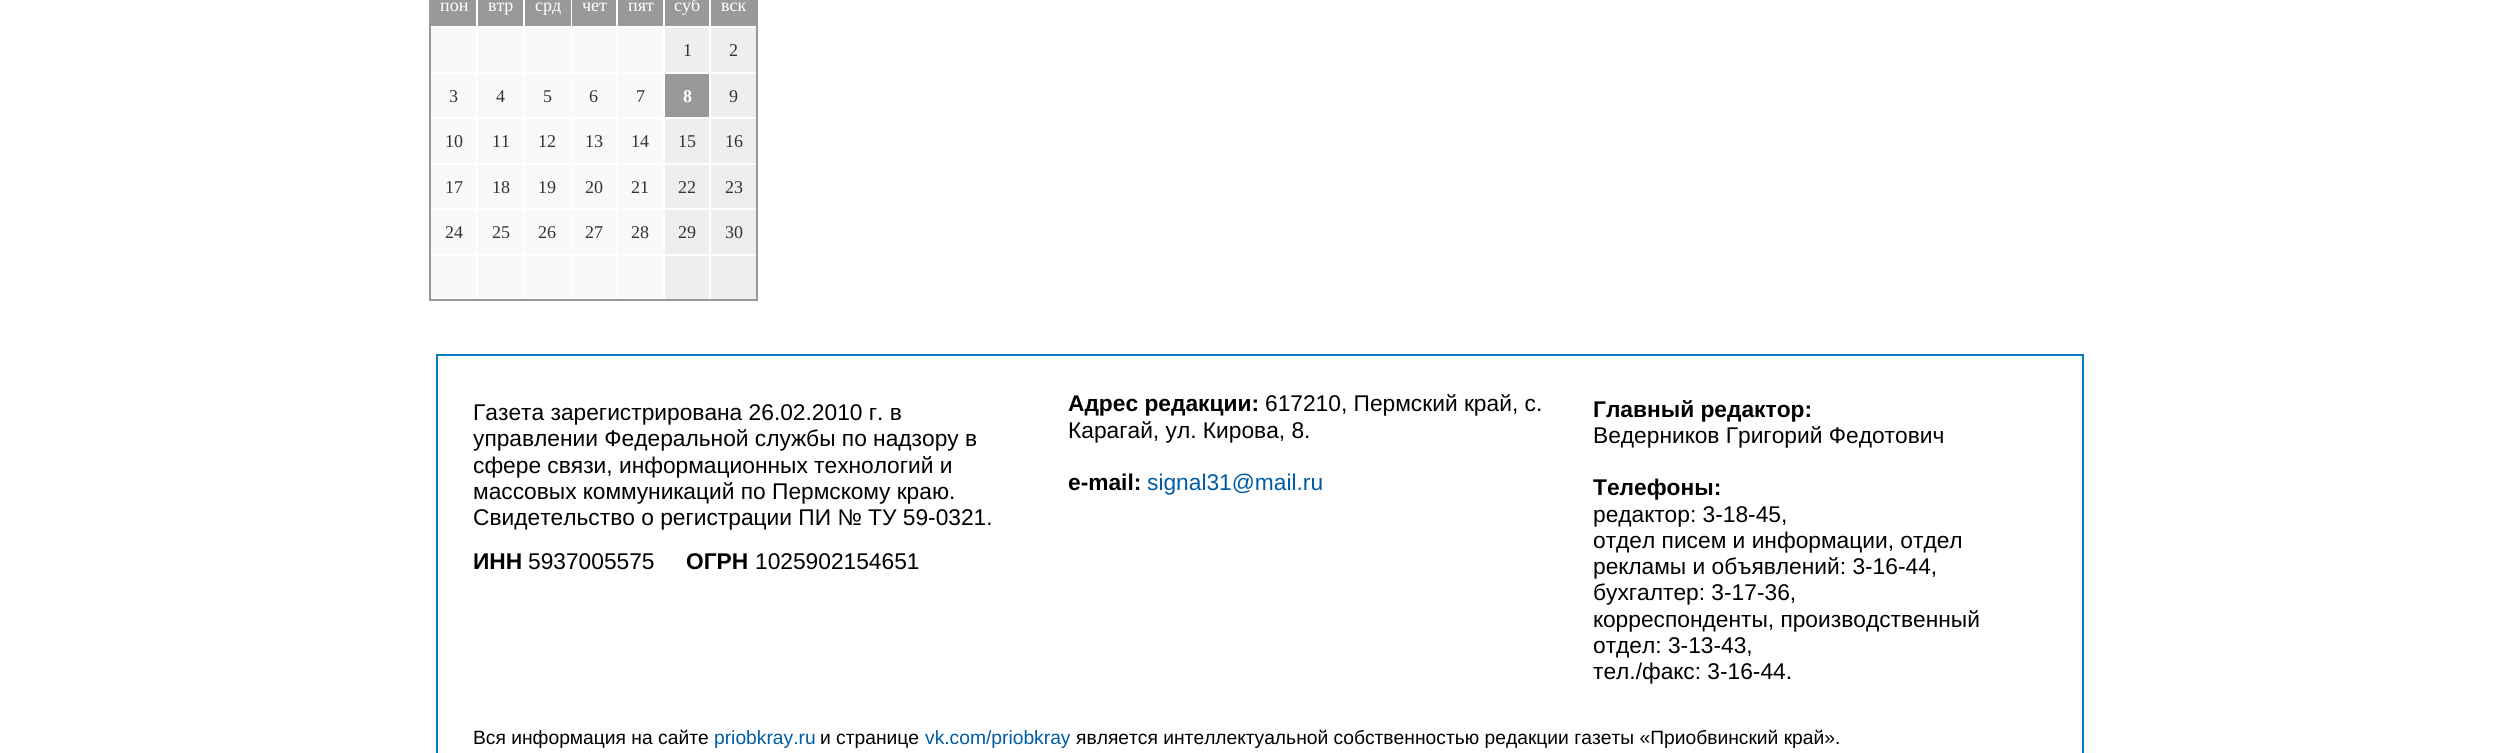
#include <cairo/cairo.h>
#include <math.h>
#include <stddef.h>


static void draw(cairo_t *cr) {
  cairo_set_source_rgb(cr, 1, 1, 1);
  cairo_paint(cr);
  cairo_rectangle(cr, 430, -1, 327, 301);
  cairo_set_source_rgb(cr, 153 / 255.0, 153 / 255.0, 153 / 255.0);
  cairo_stroke(cr);
  cairo_rectangle(cr, 431, 0, 45, 26);
  cairo_fill(cr);
  cairo_rectangle(cr, 478, 0, 45, 26);
  cairo_fill(cr);
  cairo_rectangle(cr, 525, 0, 46, 26);
  cairo_fill(cr);
  cairo_rectangle(cr, 572, 0, 44, 26);
  cairo_fill(cr);
  cairo_rectangle(cr, 618, 0, 45, 26);
  cairo_fill(cr);
  cairo_rectangle(cr, 665, 0, 44, 26);
  cairo_fill(cr);
  cairo_rectangle(cr, 711, 0, 45, 26);
  cairo_fill(cr);
  cairo_set_source_rgb(cr, 249 / 255.0, 249 / 255.0, 249 / 255.0);
  cairo_rectangle(cr, 431, 28, 45, 44);
  cairo_fill(cr);
  cairo_rectangle(cr, 478, 28, 45, 44);
  cairo_fill(cr);
  cairo_rectangle(cr, 525, 28, 46, 44);
  cairo_fill(cr);
  cairo_rectangle(cr, 572, 28, 44, 44);
  cairo_fill(cr);
  cairo_rectangle(cr, 618, 28, 45, 44);
  cairo_fill(cr);
  cairo_set_source_rgb(cr, 238 / 255.0, 238 / 255.0, 238 / 255.0);
  cairo_rectangle(cr, 665, 28, 44, 44);
  cairo_fill(cr);
  cairo_rectangle(cr, 711, 28, 45, 44);
  cairo_fill(cr);
  cairo_set_source_rgb(cr, 249 / 255.0, 249 / 255.0, 249 / 255.0);
  cairo_rectangle(cr, 431, 74, 45, 43);
  cairo_fill(cr);
  cairo_rectangle(cr, 478, 74, 45, 43);
  cairo_fill(cr);
  cairo_rectangle(cr, 525, 74, 46, 43);
  cairo_fill(cr);
  cairo_rectangle(cr, 572, 74, 44, 43);
  cairo_fill(cr);
  cairo_rectangle(cr, 618, 74, 45, 43);
  cairo_fill(cr);
  cairo_set_source_rgb(cr, 153 / 255.0, 153 / 255.0, 153 / 255.0);
  cairo_rectangle(cr, 665, 74, 44, 43);
  cairo_fill(cr);
  cairo_set_source_rgb(cr, 238 / 255.0, 238 / 255.0, 238 / 255.0);
  cairo_rectangle(cr, 711, 74, 45, 43);
  cairo_fill(cr);
  cairo_set_source_rgb(cr, 249 / 255.0, 249 / 255.0, 249 / 255.0);
  cairo_rectangle(cr, 431, 119, 45, 44);
  cairo_fill(cr);
  cairo_rectangle(cr, 478, 119, 45, 44);
  cairo_fill(cr);
  cairo_rectangle(cr, 525, 119, 46, 44);
  cairo_fill(cr);
  cairo_rectangle(cr, 572, 119, 44, 44);
  cairo_fill(cr);
  cairo_rectangle(cr, 618, 119, 45, 44);
  cairo_fill(cr);
  cairo_set_source_rgb(cr, 238 / 255.0, 238 / 255.0, 238 / 255.0);
  cairo_rectangle(cr, 665, 119, 44, 44);
  cairo_fill(cr);
  cairo_rectangle(cr, 711, 119, 45, 44);
  cairo_fill(cr);
  cairo_set_source_rgb(cr, 249 / 255.0, 249 / 255.0, 249 / 255.0);
  cairo_rectangle(cr, 431, 165, 45, 43);
  cairo_fill(cr);
  cairo_rectangle(cr, 478, 165, 45, 43);
  cairo_fill(cr);
  cairo_rectangle(cr, 525, 165, 46, 43);
  cairo_fill(cr);
  cairo_rectangle(cr, 572, 165, 44, 43);
  cairo_fill(cr);
  cairo_rectangle(cr, 618, 165, 45, 43);
  cairo_fill(cr);
  cairo_set_source_rgb(cr, 238 / 255.0, 238 / 255.0, 238 / 255.0);
  cairo_rectangle(cr, 665, 165, 44, 43);
  cairo_fill(cr);
  cairo_rectangle(cr, 711, 165, 45, 43);
  cairo_fill(cr);
  cairo_set_source_rgb(cr, 249 / 255.0, 249 / 255.0, 249 / 255.0);
  cairo_rectangle(cr, 431, 210, 45, 44);
  cairo_fill(cr);
  cairo_rectangle(cr, 478, 210, 45, 44);
  cairo_fill(cr);
  cairo_rectangle(cr, 525, 210, 46, 44);
  cairo_fill(cr);
  cairo_rectangle(cr, 572, 210, 44, 44);
  cairo_fill(cr);
  cairo_rectangle(cr, 618, 210, 45, 44);
  cairo_fill(cr);
  cairo_set_source_rgb(cr, 238 / 255.0, 238 / 255.0, 238 / 255.0);
  cairo_rectangle(cr, 665, 210, 44, 44);
  cairo_fill(cr);
  cairo_rectangle(cr, 711, 210, 45, 44);
  cairo_fill(cr);
  cairo_set_source_rgb(cr, 249 / 255.0, 249 / 255.0, 249 / 255.0);
  cairo_rectangle(cr, 431, 256, 45, 43);
  cairo_fill(cr);
  cairo_rectangle(cr, 478, 256, 45, 43);
  cairo_fill(cr);
  cairo_rectangle(cr, 525, 256, 46, 43);
  cairo_fill(cr);
  cairo_rectangle(cr, 572, 256, 44, 43);
  cairo_fill(cr);
  cairo_rectangle(cr, 618, 256, 45, 43);
  cairo_fill(cr);
  cairo_set_source_rgb(cr, 238 / 255.0, 238 / 255.0, 238 / 255.0);
  cairo_rectangle(cr, 665, 256, 44, 43);
  cairo_fill(cr);
  cairo_rectangle(cr, 711, 256, 45, 43);
  cairo_fill(cr);
  cairo_rectangle(cr, 437, 355, 1646, 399);
  cairo_set_source_rgb(cr, 0, 124 / 255.0, 197 / 255.0);
  cairo_stroke(cr);
  cairo_select_font_face(cr, "Liberation Serif", CAIRO_FONT_SLANT_NORMAL, CAIRO_FONT_WEIGHT_NORMAL);
  cairo_set_font_size(cr, 18);
  cairo_set_source_rgb(cr, 1, 1, 1);
  cairo_move_to(cr, 440, 11);
  cairo_show_text(cr, "пон");
  cairo_move_to(cr, 488, 11);
  cairo_show_text(cr, "втр");
  cairo_move_to(cr, 535, 11);
  cairo_show_text(cr, "срд");
  cairo_move_to(cr, 582, 11);
  cairo_show_text(cr, "чет");
  cairo_move_to(cr, 628, 11);
  cairo_show_text(cr, "пят");
  cairo_move_to(cr, 674, 11);
  cairo_show_text(cr, "суб");
  cairo_move_to(cr, 721, 11);
  cairo_show_text(cr, "вск");
  cairo_set_source_rgb(cr, 51 / 255.0, 51 / 255.0, 51 / 255.0);
  cairo_move_to(cr, 683, 56);
  cairo_show_text(cr, "1");
  cairo_move_to(cr, 729, 56);
  cairo_show_text(cr, "2");
  cairo_move_to(cr, 449, 102);
  cairo_show_text(cr, "3");
  cairo_move_to(cr, 496, 102);
  cairo_show_text(cr, "4");
  cairo_move_to(cr, 543, 102);
  cairo_show_text(cr, "5");
  cairo_move_to(cr, 589, 102);
  cairo_show_text(cr, "6");
  cairo_move_to(cr, 636, 102);
  cairo_show_text(cr, "7");
  cairo_select_font_face(cr, "Liberation Serif", CAIRO_FONT_SLANT_NORMAL, CAIRO_FONT_WEIGHT_BOLD);
  cairo_set_source_rgb(cr, 1, 1, 1);
  cairo_move_to(cr, 683, 102);
  cairo_show_text(cr, "8");
  cairo_select_font_face(cr, "Liberation Serif", CAIRO_FONT_SLANT_NORMAL, CAIRO_FONT_WEIGHT_NORMAL);
  cairo_set_source_rgb(cr, 51 / 255.0, 51 / 255.0, 51 / 255.0);
  cairo_move_to(cr, 729, 102);
  cairo_show_text(cr, "9");
  cairo_move_to(cr, 445, 147);
  cairo_show_text(cr, "10");
  cairo_move_to(cr, 492, 147);
  cairo_show_text(cr, "11");
  cairo_move_to(cr, 538, 147);
  cairo_show_text(cr, "12");
  cairo_move_to(cr, 585, 147);
  cairo_show_text(cr, "13");
  cairo_move_to(cr, 631, 147);
  cairo_show_text(cr, "14");
  cairo_move_to(cr, 678, 147);
  cairo_show_text(cr, "15");
  cairo_move_to(cr, 725, 147);
  cairo_show_text(cr, "16");
  cairo_move_to(cr, 445, 193);
  cairo_show_text(cr, "17");
  cairo_move_to(cr, 492, 193);
  cairo_show_text(cr, "18");
  cairo_move_to(cr, 538, 193);
  cairo_show_text(cr, "19");
  cairo_move_to(cr, 585, 193);
  cairo_show_text(cr, "20");
  cairo_move_to(cr, 631, 193);
  cairo_show_text(cr, "21");
  cairo_move_to(cr, 678, 193);
  cairo_show_text(cr, "22");
  cairo_move_to(cr, 725, 193);
  cairo_show_text(cr, "23");
  cairo_move_to(cr, 445, 238);
  cairo_show_text(cr, "24");
  cairo_move_to(cr, 492, 238);
  cairo_show_text(cr, "25");
  cairo_move_to(cr, 538, 238);
  cairo_show_text(cr, "26");
  cairo_move_to(cr, 585, 238);
  cairo_show_text(cr, "27");
  cairo_move_to(cr, 631, 238);
  cairo_show_text(cr, "28");
  cairo_move_to(cr, 678, 238);
  cairo_show_text(cr, "29");
  cairo_move_to(cr, 725, 238);
  cairo_show_text(cr, "30");
  cairo_select_font_face(cr, "Liberation Sans", CAIRO_FONT_SLANT_NORMAL, CAIRO_FONT_WEIGHT_NORMAL);
  cairo_set_font_size(cr, 22.75);
  cairo_set_source_rgb(cr, 0, 0, 0);
  cairo_move_to(cr, 473, 420);
  cairo_show_text(cr, "Газета зарегистрирована 26.02.2010 г. в");
  cairo_move_to(cr, 473, 446);
  cairo_show_text(cr, "управлении Федеральной службы по надзору в");
  cairo_move_to(cr, 473, 473);
  cairo_show_text(cr, "сфере связи, информационных технологий и");
  cairo_move_to(cr, 473, 499);
  cairo_show_text(cr, "массовых коммуникаций по Пермскому краю.");
  cairo_move_to(cr, 473, 525);
  cairo_show_text(cr, "Свидетельство о регистрации ПИ № ТУ 59-0321.");
  cairo_select_font_face(cr, "Liberation Sans", CAIRO_FONT_SLANT_NORMAL, CAIRO_FONT_WEIGHT_BOLD);
  cairo_move_to(cr, 473, 569);
  cairo_show_text(cr, "ИНН");
  cairo_select_font_face(cr, "Liberation Sans", CAIRO_FONT_SLANT_NORMAL, CAIRO_FONT_WEIGHT_NORMAL);
  cairo_move_to(cr, 528, 569);
  cairo_show_text(cr, "5937005575");
  cairo_select_font_face(cr, "Liberation Sans", CAIRO_FONT_SLANT_NORMAL, CAIRO_FONT_WEIGHT_BOLD);
  cairo_move_to(cr, 686, 569);
  cairo_show_text(cr, "ОГРН");
  cairo_select_font_face(cr, "Liberation Sans", CAIRO_FONT_SLANT_NORMAL, CAIRO_FONT_WEIGHT_NORMAL);
  cairo_move_to(cr, 755, 569);
  cairo_show_text(cr, "1025902154651");
  cairo_select_font_face(cr, "Liberation Sans", CAIRO_FONT_SLANT_NORMAL, CAIRO_FONT_WEIGHT_BOLD);
  cairo_move_to(cr, 1068, 411);
  cairo_show_text(cr, "Адрес редакции:");
  cairo_select_font_face(cr, "Liberation Sans", CAIRO_FONT_SLANT_NORMAL, CAIRO_FONT_WEIGHT_NORMAL);
  cairo_move_to(cr, 1265, 411);
  cairo_show_text(cr, "617210, Пермский край, с.");
  cairo_move_to(cr, 1068, 438);
  cairo_show_text(cr, "Карагай, ул. Кирова, 8.");
  cairo_select_font_face(cr, "Liberation Sans", CAIRO_FONT_SLANT_NORMAL, CAIRO_FONT_WEIGHT_BOLD);
  cairo_move_to(cr, 1068, 490);
  cairo_show_text(cr, "e-mail:");
  cairo_select_font_face(cr, "Liberation Sans", CAIRO_FONT_SLANT_NORMAL, CAIRO_FONT_WEIGHT_NORMAL);
  cairo_set_source_rgb(cr, 0, 92 / 255.0, 164 / 255.0);
  cairo_move_to(cr, 1147, 490);
  cairo_show_text(cr, "signal31@mail.ru");
  cairo_select_font_face(cr, "Liberation Sans", CAIRO_FONT_SLANT_NORMAL, CAIRO_FONT_WEIGHT_BOLD);
  cairo_set_source_rgb(cr, 0, 0, 0);
  cairo_move_to(cr, 1593, 417);
  cairo_show_text(cr, "Главный редактор:");
  cairo_select_font_face(cr, "Liberation Sans", CAIRO_FONT_SLANT_NORMAL, CAIRO_FONT_WEIGHT_NORMAL);
  cairo_move_to(cr, 1593, 443);
  cairo_show_text(cr, "Ведерников Григорий Федотович");
  cairo_select_font_face(cr, "Liberation Sans", CAIRO_FONT_SLANT_NORMAL, CAIRO_FONT_WEIGHT_BOLD);
  cairo_move_to(cr, 1593, 495);
  cairo_show_text(cr, "Телефоны:");
  cairo_select_font_face(cr, "Liberation Sans", CAIRO_FONT_SLANT_NORMAL, CAIRO_FONT_WEIGHT_NORMAL);
  cairo_move_to(cr, 1593, 522);
  cairo_show_text(cr, "редактор: 3-18-45,");
  cairo_move_to(cr, 1593, 548);
  cairo_show_text(cr, "отдел писем и информации, отдел");
  cairo_move_to(cr, 1593, 574);
  cairo_show_text(cr, "рекламы и объявлений: 3-16-44,");
  cairo_move_to(cr, 1593, 600);
  cairo_show_text(cr, "бухгалтер: 3-17-36,");
  cairo_move_to(cr, 1593, 627);
  cairo_show_text(cr, "корреспонденты, производственный");
  cairo_move_to(cr, 1593, 653);
  cairo_show_text(cr, "отдел: 3-13-43,");
  cairo_move_to(cr, 1593, 679);
  cairo_show_text(cr, "тел./факс: 3-16-44.");
  cairo_set_font_size(cr, 19.25);
  cairo_move_to(cr, 473, 744);
  cairo_show_text(cr, "Вся информация на сайте");
  cairo_set_source_rgb(cr, 0, 92 / 255.0, 164 / 255.0);
  cairo_move_to(cr, 714, 744);
  cairo_show_text(cr, "priobkray.ru");
  cairo_set_source_rgb(cr, 0, 0, 0);
  cairo_move_to(cr, 820, 744);
  cairo_show_text(cr, "и странице");
  cairo_set_source_rgb(cr, 0, 92 / 255.0, 164 / 255.0);
  cairo_move_to(cr, 925, 744);
  cairo_show_text(cr, "vk.com/priobkray");
  cairo_set_source_rgb(cr, 0, 0, 0);
  cairo_move_to(cr, 1076, 744);
  cairo_show_text(cr, "является интеллектуальной собственностью редакции газеты «Приобвинский край».");
}

int main(void) {
  cairo_surface_t *surface = cairo_image_surface_create(CAIRO_FORMAT_RGB24, 2519, 753);
  cairo_t *cr = cairo_create(surface);
  cairo_font_options_t *options = cairo_font_options_create();
  cairo_font_options_set_hint_metrics(options, CAIRO_HINT_METRICS_OFF);
  cairo_font_options_set_hint_style(options, CAIRO_HINT_STYLE_NONE);
  cairo_set_font_options(cr, options);
  cairo_set_miter_limit(cr, 4);
  draw(cr);
  cairo_surface_write_to_png(surface, "out.png");
  cairo_font_options_destroy(options);
  cairo_destroy(cr);
  cairo_surface_destroy(surface);
  return 0;
}
